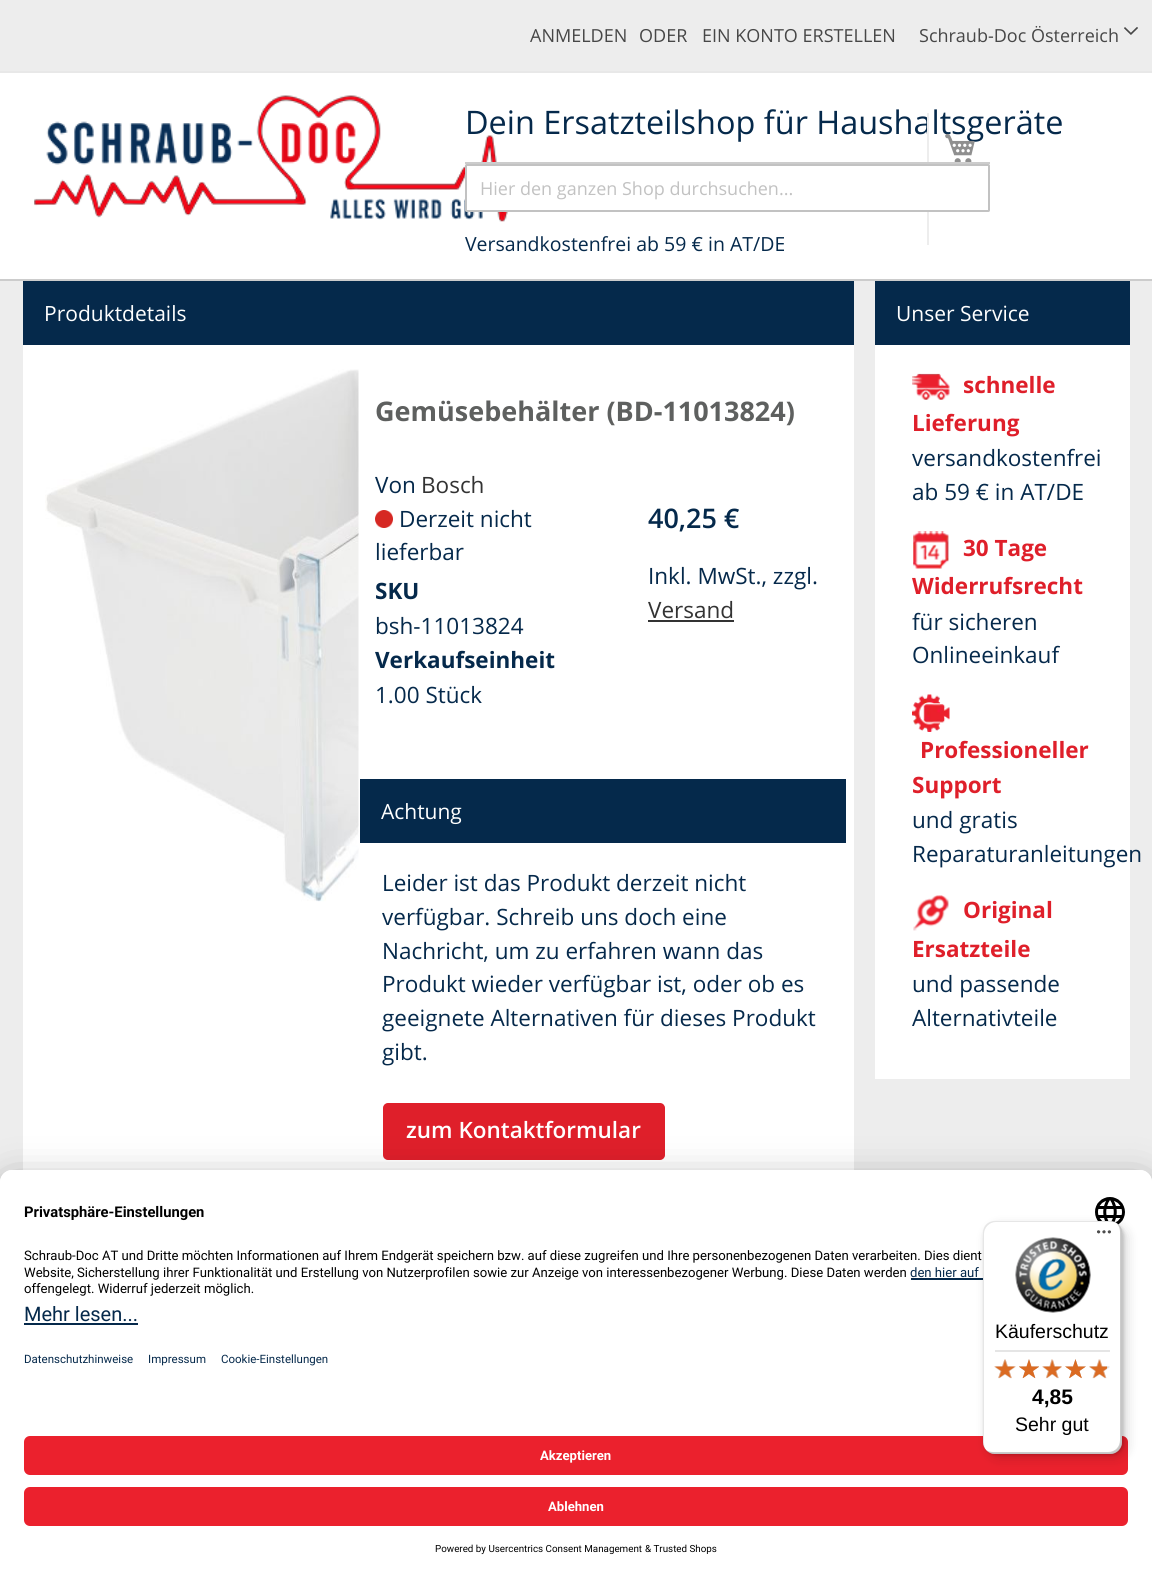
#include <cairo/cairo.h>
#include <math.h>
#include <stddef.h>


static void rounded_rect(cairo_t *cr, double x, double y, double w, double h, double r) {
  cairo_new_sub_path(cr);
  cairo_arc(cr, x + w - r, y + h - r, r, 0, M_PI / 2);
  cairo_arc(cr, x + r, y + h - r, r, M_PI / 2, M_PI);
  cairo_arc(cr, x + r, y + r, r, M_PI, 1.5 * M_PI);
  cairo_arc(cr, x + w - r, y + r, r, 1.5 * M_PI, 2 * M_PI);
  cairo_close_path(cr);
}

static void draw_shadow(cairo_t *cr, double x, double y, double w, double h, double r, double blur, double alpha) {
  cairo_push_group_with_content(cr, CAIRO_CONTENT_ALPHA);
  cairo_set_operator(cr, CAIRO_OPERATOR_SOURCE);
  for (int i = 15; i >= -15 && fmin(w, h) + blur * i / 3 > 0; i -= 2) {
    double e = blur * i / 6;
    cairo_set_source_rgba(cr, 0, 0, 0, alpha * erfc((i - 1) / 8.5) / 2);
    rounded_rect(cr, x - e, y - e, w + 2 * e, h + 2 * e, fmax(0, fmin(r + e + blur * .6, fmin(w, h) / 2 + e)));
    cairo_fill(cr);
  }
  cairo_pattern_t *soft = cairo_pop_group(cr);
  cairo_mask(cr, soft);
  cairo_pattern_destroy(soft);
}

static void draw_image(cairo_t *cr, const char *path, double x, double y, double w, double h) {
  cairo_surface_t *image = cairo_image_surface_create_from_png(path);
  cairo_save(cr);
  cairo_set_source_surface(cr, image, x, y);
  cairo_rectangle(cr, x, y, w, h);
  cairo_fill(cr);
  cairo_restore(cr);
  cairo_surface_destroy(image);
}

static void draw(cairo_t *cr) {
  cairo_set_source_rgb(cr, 237 / 255.0, 237 / 255.0, 237 / 255.0);
  cairo_paint(cr);
  cairo_set_source_rgb(cr, 1, 1, 1);
  cairo_rectangle(cr, 0, 73, 1152, 206);
  cairo_fill(cr);
  cairo_set_source_rgb(cr, 204 / 255.0, 204 / 255.0, 204 / 255.0);
  cairo_rectangle(cr, 0, 279, 1152, 2);
  cairo_fill(cr);
  cairo_set_source_rgb(cr, 232 / 255.0, 232 / 255.0, 232 / 255.0);
  cairo_rectangle(cr, 0, 71, 1152, 2);
  cairo_fill(cr);
  draw_image(cr, "images/1.png", 1124, 27, 14, 8);
  cairo_set_source_rgb(cr, 1, 1, 1);
  cairo_rectangle(cr, 23, 345, 831, 825);
  cairo_fill(cr);
  cairo_set_source_rgb(cr, 5 / 255.0, 41 / 255.0, 75 / 255.0);
  cairo_rectangle(cr, 23, 281, 831, 64);
  cairo_fill(cr);
  draw_image(cr, "images/4.png", 45, 369, 314, 533);
  draw_image(cr, "images/5.png", 375, 510, 18, 18);
  cairo_set_source_rgb(cr, 51 / 255.0, 51 / 255.0, 51 / 255.0);
  cairo_rectangle(cr, 648, 620, 86, 2);
  cairo_fill(cr);
  cairo_set_source_rgb(cr, 5 / 255.0, 41 / 255.0, 75 / 255.0);
  cairo_rectangle(cr, 360, 779, 486, 64);
  cairo_fill(cr);
  cairo_set_source_rgb(cr, 223 / 255.0, 31 / 255.0, 42 / 255.0);
  rounded_rect(cr, 384, 1104, 280, 55, 4);
  cairo_fill_preserve(cr);
  cairo_stroke(cr);
  cairo_set_source_rgb(cr, 1, 1, 1);
  cairo_rectangle(cr, 875, 345, 255, 734);
  cairo_fill(cr);
  cairo_set_source_rgb(cr, 5 / 255.0, 41 / 255.0, 75 / 255.0);
  cairo_rectangle(cr, 875, 281, 255, 64);
  cairo_fill(cr);
  draw_image(cr, "images/6.png", 912, 373, 38, 27);
  draw_image(cr, "images/7.png", 913, 531, 36, 38);
  draw_image(cr, "images/8.png", 912, 694, 38, 38);
  draw_image(cr, "images/9.png", 913, 895, 36, 36);
  cairo_set_source_rgb(cr, 0, 0, 0);
  draw_shadow(cr, 0, 1200, 1152, 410, 12, 21, 0.3);
  draw_shadow(cr, 0, 1178, 1152, 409, 12, 19.5, 0.22);
  cairo_set_source_rgb(cr, 1, 1, 1);
  cairo_new_path(cr);
  cairo_move_to(cr, 12, 1170);
  cairo_line_to(cr, 1140, 1170);
  cairo_curve_to(cr, 1146.5, 1170, 1152, 1175.5, 1152, 1182);
  cairo_line_to(cr, 1152, 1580);
  cairo_line_to(cr, 0, 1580);
  cairo_line_to(cr, 0, 1182);
  cairo_curve_to(cr, 0, 1175.5, 5.5, 1170, 12, 1170);
  cairo_close_path(cr);
  cairo_fill(cr);
  cairo_new_path(cr);
  cairo_move_to(cr, 12, 1170);
  cairo_line_to(cr, 1140, 1170);
  cairo_curve_to(cr, 1146.5, 1170, 1152, 1175.5, 1152, 1182);
  cairo_line_to(cr, 1152, 1418);
  cairo_line_to(cr, 0, 1418);
  cairo_line_to(cr, 0, 1182);
  cairo_curve_to(cr, 0, 1175.5, 5.5, 1170, 12, 1170);
  cairo_close_path(cr);
  cairo_fill(cr);
  draw_image(cr, "images/10.png", 1095, 1197, 30, 28);
  cairo_set_source_rgb(cr, 5 / 255.0, 41 / 255.0, 75 / 255.0);
  cairo_rectangle(cr, 911, 1278, 72, 2);
  cairo_fill(cr);
  cairo_rectangle(cr, 24, 1323, 114, 2);
  cairo_fill(cr);
  cairo_set_source_rgb(cr, 235 / 255.0, 33 / 255.0, 45 / 255.0);
  rounded_rect(cr, 24, 1436, 1104, 39, 6);
  cairo_fill(cr);
  rounded_rect(cr, 24, 1487, 1104, 39, 6);
  cairo_fill(cr);
  cairo_set_source_rgb(cr, 0, 0, 0);
  draw_shadow(cr, 987, 1226, 140, 232, 12, 6, 0.15);
  draw_shadow(cr, 984, 1223, 140, 232, 12, 1.5, 0.15);
  cairo_set_source_rgb(cr, 1, 1, 1);
  rounded_rect(cr, 983, 1221, 139, 233, 12);
  cairo_fill(cr);
  cairo_set_source_rgba(cr, 0, 0, 0, 0.1);
  cairo_new_path(cr);
  cairo_move_to(cr, 996, 1222);
  cairo_line_to(cr, 1112, 1222);
  cairo_curve_to(cr, 1114, 1222, 1116, 1223, 1117, 1224);
  cairo_curve_to(cr, 1115, 1222, 1113, 1221, 1110, 1221);
  cairo_line_to(cr, 995, 1221);
  cairo_curve_to(cr, 988, 1221, 983, 1226, 983, 1233);
  cairo_line_to(cr, 983, 1442);
  cairo_curve_to(cr, 983, 1445, 984, 1448, 986, 1450);
  cairo_curve_to(cr, 985, 1448, 984, 1446, 984, 1443);
  cairo_line_to(cr, 984, 1234);
  cairo_curve_to(cr, 984, 1228, 989, 1222, 996, 1222);
  cairo_close_path(cr);
  cairo_fill(cr);
  cairo_set_source_rgba(cr, 0, 0, 0, 0.2);
  cairo_new_path(cr);
  cairo_move_to(cr, 986, 1450);
  cairo_curve_to(cr, 988, 1452, 991, 1454, 995, 1454);
  cairo_line_to(cr, 1110, 1454);
  cairo_curve_to(cr, 1117, 1454, 1122, 1449, 1122, 1442);
  cairo_line_to(cr, 1122, 1233);
  cairo_curve_to(cr, 1122, 1228, 1119, 1224, 1115, 1222);
  cairo_curve_to(cr, 1118, 1224, 1120, 1228, 1120, 1232);
  cairo_line_to(cr, 1120, 1440);
  cairo_curve_to(cr, 1120, 1447, 1115, 1452, 1108, 1452);
  cairo_line_to(cr, 993, 1452);
  cairo_curve_to(cr, 990, 1452, 988, 1451, 986, 1450);
  cairo_close_path(cr);
  cairo_fill(cr);
  cairo_set_source_rgba(cr, 50 / 255.0, 50 / 255.0, 50 / 255.0, 0.2);
  cairo_new_path(cr);
  cairo_move_to(cr, 986, 1450);
  cairo_curve_to(cr, 988, 1452, 991, 1454, 995, 1454);
  cairo_line_to(cr, 1110, 1454);
  cairo_curve_to(cr, 1117, 1454, 1122, 1449, 1122, 1442);
  cairo_line_to(cr, 1122, 1233);
  cairo_curve_to(cr, 1122, 1230, 1121, 1227, 1119, 1225);
  cairo_curve_to(cr, 1120, 1227, 1121, 1229, 1121, 1232);
  cairo_line_to(cr, 1121, 1441);
  cairo_curve_to(cr, 1121, 1447, 1116, 1453, 1109, 1453);
  cairo_line_to(cr, 994, 1453);
  cairo_curve_to(cr, 991, 1453, 988, 1452, 986, 1450);
  cairo_close_path(cr);
  cairo_fill(cr);
  cairo_set_source_rgba(cr, 1, 1, 1, 0.3);
  cairo_new_path(cr);
  cairo_move_to(cr, 986, 1450);
  cairo_curve_to(cr, 988, 1452, 991, 1454, 995, 1454);
  cairo_line_to(cr, 1110, 1454);
  cairo_curve_to(cr, 1117, 1454, 1122, 1449, 1122, 1442);
  cairo_line_to(cr, 1122, 1233);
  cairo_curve_to(cr, 1122, 1229, 1120, 1226, 1118, 1224);
  cairo_curve_to(cr, 1120, 1226, 1121, 1229, 1121, 1232);
  cairo_line_to(cr, 1121, 1441);
  cairo_curve_to(cr, 1121, 1447, 1116, 1453, 1109, 1453);
  cairo_line_to(cr, 994, 1453);
  cairo_curve_to(cr, 991, 1453, 988, 1452, 986, 1450);
  cairo_close_path(cr);
  cairo_fill(cr);
  draw_image(cr, "images/11.png", 1097, 1230, 14, 4);
  draw_image(cr, "images/12.png", 1015, 1237, 76, 76);
  cairo_set_source_rgb(cr, 229 / 255.0, 229 / 255.0, 229 / 255.0);
  cairo_rectangle(cr, 995, 1350, 115, 2);
  cairo_fill(cr);
  draw_image(cr, "images/13.png", 994, 1359, 22, 20);
  draw_image(cr, "images/14.png", 1019, 1359, 20, 19);
  draw_image(cr, "images/15.png", 1042, 1359, 20, 20);
  draw_image(cr, "images/16.png", 1065, 1359, 21, 19);
  draw_image(cr, "images/17.png", 1089, 1359, 21, 20);
  draw_image(cr, "images/18.png", 994, 1359, 22, 19);
  draw_image(cr, "images/19.png", 1019, 1359, 20, 20);
  draw_image(cr, "images/20.png", 1042, 1359, 20, 19);
  draw_image(cr, "images/21.png", 1065, 1359, 21, 20);
  draw_image(cr, "images/22.png", 1089, 1359, 18, 19);
  cairo_select_font_face(cr, "Open Sans", CAIRO_FONT_SLANT_NORMAL, CAIRO_FONT_WEIGHT_NORMAL);
  cairo_set_font_size(cr, 18);
  cairo_set_source_rgb(cr, 71 / 255.0, 71 / 255.0, 71 / 255.0);
  cairo_move_to(cr, 530, 42);
  cairo_show_text(cr, "ANMELDEN");
  cairo_move_to(cr, 639, 42);
  cairo_show_text(cr, "ODER");
  cairo_move_to(cr, 702, 42);
  cairo_show_text(cr, "EIN KONTO ERSTELLEN");
  cairo_move_to(cr, 919, 42);
  cairo_show_text(cr, "Schraub-Doc Österreich");
  cairo_set_font_size(cr, 32.4);
  cairo_set_source_rgb(cr, 5 / 255.0, 41 / 255.0, 75 / 255.0);
  cairo_move_to(cr, 465, 134);
  cairo_show_text(cr, "Dein Ersatzteilshop für Haushaltsgeräte");
  draw_image(cr, "images/2.png", 34, 95, 474, 127);
  cairo_set_font_size(cr, 19.5);
  cairo_move_to(cr, 465, 251);
  cairo_show_text(cr, "Versandkostenfrei ab 59 € in AT/DE");
  cairo_set_source_rgb(cr, 237 / 255.0, 237 / 255.0, 237 / 255.0);
  cairo_rectangle(cr, 927, 113, 2, 132);
  cairo_fill(cr);
  cairo_set_source_rgb(cr, 1, 1, 1);
  cairo_rectangle(cr, 467, 166, 462, 44);
  cairo_fill(cr);
  rounded_rect(cr, 466, 165, 523, 46, 0.5);
  cairo_set_source_rgb(cr, 194 / 255.0, 194 / 255.0, 194 / 255.0);
  cairo_stroke(cr);
  cairo_set_font_size(cr, 18);
  cairo_move_to(cr, 480, 195);
  cairo_show_text(cr, "Hier den ganzen Shop durchsuchen...");
  cairo_set_source_rgb(cr, 204 / 255.0, 204 / 255.0, 204 / 255.0);
  cairo_rectangle(cr, 465, 162, 525, 2);
  cairo_fill(cr);
  draw_image(cr, "images/3.png", 945, 133, 30, 29);
  cairo_set_font_size(cr, 21);
  cairo_set_source_rgb(cr, 1, 1, 1);
  cairo_move_to(cr, 44, 321);
  cairo_show_text(cr, "Produktdetails");
  cairo_select_font_face(cr, "Open Sans", CAIRO_FONT_SLANT_NORMAL, CAIRO_FONT_WEIGHT_BOLD);
  cairo_set_font_size(cr, 27);
  cairo_set_source_rgb(cr, 94 / 255.0, 96 / 255.0, 95 / 255.0);
  cairo_move_to(cr, 375, 421);
  cairo_show_text(cr, "Gemüsebehälter (BD-11013824)");
  cairo_select_font_face(cr, "Open Sans", CAIRO_FONT_SLANT_NORMAL, CAIRO_FONT_WEIGHT_NORMAL);
  cairo_set_font_size(cr, 22.5);
  cairo_set_source_rgb(cr, 5 / 255.0, 41 / 255.0, 75 / 255.0);
  cairo_move_to(cr, 375, 493);
  cairo_show_text(cr, "Von");
  cairo_set_source_rgb(cr, 51 / 255.0, 51 / 255.0, 51 / 255.0);
  cairo_move_to(cr, 421, 493);
  cairo_show_text(cr, "Bosch");
  cairo_set_source_rgb(cr, 5 / 255.0, 41 / 255.0, 75 / 255.0);
  cairo_move_to(cr, 399, 527);
  cairo_show_text(cr, "Derzeit nicht");
  cairo_move_to(cr, 375, 560);
  cairo_show_text(cr, "lieferbar");
  cairo_select_font_face(cr, "Open Sans", CAIRO_FONT_SLANT_NORMAL, CAIRO_FONT_WEIGHT_BOLD);
  cairo_move_to(cr, 375, 599);
  cairo_show_text(cr, "SKU");
  cairo_select_font_face(cr, "Open Sans", CAIRO_FONT_SLANT_NORMAL, CAIRO_FONT_WEIGHT_NORMAL);
  cairo_move_to(cr, 375, 634);
  cairo_show_text(cr, "bsh-11013824");
  cairo_select_font_face(cr, "Open Sans", CAIRO_FONT_SLANT_NORMAL, CAIRO_FONT_WEIGHT_BOLD);
  cairo_move_to(cr, 375, 668);
  cairo_show_text(cr, "Verkaufseinheit");
  cairo_select_font_face(cr, "Open Sans", CAIRO_FONT_SLANT_NORMAL, CAIRO_FONT_WEIGHT_NORMAL);
  cairo_move_to(cr, 375, 703);
  cairo_show_text(cr, "1.00 Stück");
  cairo_select_font_face(cr, "Open Sans SemiBold", CAIRO_FONT_SLANT_NORMAL, CAIRO_FONT_WEIGHT_NORMAL);
  cairo_set_font_size(cr, 27);
  cairo_move_to(cr, 648, 528);
  cairo_show_text(cr, "40,25 €");
  cairo_select_font_face(cr, "Open Sans", CAIRO_FONT_SLANT_NORMAL, CAIRO_FONT_WEIGHT_NORMAL);
  cairo_set_font_size(cr, 22.5);
  cairo_move_to(cr, 648, 584);
  cairo_show_text(cr, "Inkl. MwSt., zzgl.");
  cairo_set_source_rgb(cr, 51 / 255.0, 51 / 255.0, 51 / 255.0);
  cairo_move_to(cr, 648, 618);
  cairo_show_text(cr, "Versand");
  cairo_set_font_size(cr, 21);
  cairo_set_source_rgb(cr, 1, 1, 1);
  cairo_move_to(cr, 381, 819);
  cairo_show_text(cr, "Achtung");
  cairo_set_font_size(cr, 22.5);
  cairo_set_source_rgb(cr, 5 / 255.0, 41 / 255.0, 75 / 255.0);
  cairo_move_to(cr, 382, 891);
  cairo_show_text(cr, "Leider ist das Produkt derzeit nicht");
  cairo_move_to(cr, 382, 925);
  cairo_show_text(cr, "verfügbar. Schreib uns doch eine");
  cairo_move_to(cr, 382, 959);
  cairo_show_text(cr, "Nachricht, um zu erfahren wann das");
  cairo_move_to(cr, 382, 992);
  cairo_show_text(cr, "Produkt wieder verfügbar ist, oder ob es");
  cairo_move_to(cr, 382, 1026);
  cairo_show_text(cr, "geeignete Alternativen für dieses Produkt");
  cairo_move_to(cr, 382, 1060);
  cairo_show_text(cr, "gibt.");
  cairo_select_font_face(cr, "Open Sans SemiBold", CAIRO_FONT_SLANT_NORMAL, CAIRO_FONT_WEIGHT_NORMAL);
  cairo_set_source_rgb(cr, 1, 1, 1);
  cairo_move_to(cr, 406, 1138);
  cairo_show_text(cr, "zum Kontaktformular");
  cairo_select_font_face(cr, "Open Sans", CAIRO_FONT_SLANT_NORMAL, CAIRO_FONT_WEIGHT_NORMAL);
  cairo_set_font_size(cr, 21);
  cairo_move_to(cr, 896, 321);
  cairo_show_text(cr, "Unser Service");
  cairo_select_font_face(cr, "Open Sans", CAIRO_FONT_SLANT_NORMAL, CAIRO_FONT_WEIGHT_BOLD);
  cairo_set_font_size(cr, 22.5);
  cairo_set_source_rgb(cr, 223 / 255.0, 31 / 255.0, 42 / 255.0);
  cairo_move_to(cr, 963, 393);
  cairo_show_text(cr, "schnelle");
  cairo_move_to(cr, 912, 431);
  cairo_show_text(cr, "Lieferung");
  cairo_select_font_face(cr, "Open Sans", CAIRO_FONT_SLANT_NORMAL, CAIRO_FONT_WEIGHT_NORMAL);
  cairo_set_source_rgb(cr, 5 / 255.0, 41 / 255.0, 75 / 255.0);
  cairo_move_to(cr, 912, 466);
  cairo_show_text(cr, "versandkostenfrei");
  cairo_move_to(cr, 912, 500);
  cairo_show_text(cr, "ab 59 € in AT/DE");
  cairo_select_font_face(cr, "Open Sans", CAIRO_FONT_SLANT_NORMAL, CAIRO_FONT_WEIGHT_BOLD);
  cairo_set_source_rgb(cr, 223 / 255.0, 31 / 255.0, 42 / 255.0);
  cairo_move_to(cr, 963, 556);
  cairo_show_text(cr, "30 Tage");
  cairo_move_to(cr, 912, 594);
  cairo_show_text(cr, "Widerrufsrecht");
  cairo_select_font_face(cr, "Open Sans", CAIRO_FONT_SLANT_NORMAL, CAIRO_FONT_WEIGHT_NORMAL);
  cairo_set_source_rgb(cr, 5 / 255.0, 41 / 255.0, 75 / 255.0);
  cairo_move_to(cr, 912, 630);
  cairo_show_text(cr, "für sicheren");
  cairo_move_to(cr, 912, 663);
  cairo_show_text(cr, "Onlineeinkauf");
  cairo_select_font_face(cr, "Open Sans", CAIRO_FONT_SLANT_NORMAL, CAIRO_FONT_WEIGHT_BOLD);
  cairo_set_source_rgb(cr, 223 / 255.0, 31 / 255.0, 42 / 255.0);
  cairo_move_to(cr, 920, 758);
  cairo_show_text(cr, "Professioneller");
  cairo_move_to(cr, 912, 793);
  cairo_show_text(cr, "Support");
  cairo_select_font_face(cr, "Open Sans", CAIRO_FONT_SLANT_NORMAL, CAIRO_FONT_WEIGHT_NORMAL);
  cairo_set_source_rgb(cr, 5 / 255.0, 41 / 255.0, 75 / 255.0);
  cairo_move_to(cr, 912, 828);
  cairo_show_text(cr, "und gratis");
  cairo_move_to(cr, 912, 862);
  cairo_show_text(cr, "Reparaturanleitungen");
  cairo_select_font_face(cr, "Open Sans", CAIRO_FONT_SLANT_NORMAL, CAIRO_FONT_WEIGHT_BOLD);
  cairo_set_source_rgb(cr, 223 / 255.0, 31 / 255.0, 42 / 255.0);
  cairo_move_to(cr, 963, 918);
  cairo_show_text(cr, "Original");
  cairo_move_to(cr, 912, 957);
  cairo_show_text(cr, "Ersatzteile");
  cairo_select_font_face(cr, "Open Sans", CAIRO_FONT_SLANT_NORMAL, CAIRO_FONT_WEIGHT_NORMAL);
  cairo_set_source_rgb(cr, 5 / 255.0, 41 / 255.0, 75 / 255.0);
  cairo_move_to(cr, 912, 992);
  cairo_show_text(cr, "und passende");
  cairo_move_to(cr, 912, 1026);
  cairo_show_text(cr, "Alternativteile");
  cairo_select_font_face(cr, "Roboto", CAIRO_FONT_SLANT_NORMAL, CAIRO_FONT_WEIGHT_BOLD);
  cairo_set_font_size(cr, 14.75);
  cairo_set_source_rgb(cr, 0, 0, 0);
  cairo_move_to(cr, 24, 1217);
  cairo_show_text(cr, "Privatsphäre-Einstellungen");
  cairo_select_font_face(cr, "Roboto", CAIRO_FONT_SLANT_NORMAL, CAIRO_FONT_WEIGHT_NORMAL);
  cairo_set_font_size(cr, 13.12);
  cairo_move_to(cr, 24, 1260);
  cairo_show_text(cr, "Schraub-Doc AT und Dritte möchten Informationen auf Ihrem Endgerät speichern bzw. auf diese zugreifen und Ihre personenbezogenen Daten verarbeiten. Dies dient");
  cairo_move_to(cr, 24, 1277);
  cairo_show_text(cr, "Website, Sicherstellung ihrer Funktionalität und Erstellung von Nutzerprofilen sowie zur Anzeige von interessenbezogener Werbung. Diese Daten werden");
  cairo_set_source_rgb(cr, 5 / 255.0, 41 / 255.0, 75 / 255.0);
  cairo_move_to(cr, 910, 1277);
  cairo_show_text(cr, "den hier auf");
  cairo_set_source_rgb(cr, 0, 0, 0);
  cairo_move_to(cr, 24, 1293);
  cairo_show_text(cr, "offengelegt. Widerruf jederzeit möglich.");
  cairo_set_font_size(cr, 20);
  cairo_set_source_rgb(cr, 5 / 255.0, 41 / 255.0, 75 / 255.0);
  cairo_move_to(cr, 24, 1321);
  cairo_show_text(cr, "Mehr lesen...");
  cairo_set_font_size(cr, 11.5);
  cairo_move_to(cr, 24, 1363);
  cairo_show_text(cr, "Datenschutzhinweise");
  cairo_move_to(cr, 148, 1363);
  cairo_show_text(cr, "Impressum");
  cairo_move_to(cr, 221, 1363);
  cairo_show_text(cr, "Cookie-Einstellungen");
  cairo_select_font_face(cr, "Roboto", CAIRO_FONT_SLANT_NORMAL, CAIRO_FONT_WEIGHT_BOLD);
  cairo_set_font_size(cr, 13.12);
  cairo_set_source_rgb(cr, 1, 1, 1);
  cairo_move_to(cr, 540, 1460);
  cairo_show_text(cr, "Akzeptieren");
  cairo_move_to(cr, 548, 1511);
  cairo_show_text(cr, "Ablehnen");
  cairo_select_font_face(cr, "Roboto", CAIRO_FONT_SLANT_NORMAL, CAIRO_FONT_WEIGHT_NORMAL);
  cairo_set_font_size(cr, 9.8);
  cairo_set_source_rgb(cr, 0, 0, 0);
  cairo_move_to(cr, 435, 1552);
  cairo_show_text(cr, "Powered by Usercentrics Consent Management");
  cairo_move_to(cr, 645, 1552);
  cairo_show_text(cr, "& Trusted Shops");
  cairo_select_font_face(cr, "Liberation Sans", CAIRO_FONT_SLANT_NORMAL, CAIRO_FONT_WEIGHT_NORMAL);
  cairo_set_font_size(cr, 19.5);
  cairo_move_to(cr, 995, 1338);
  cairo_show_text(cr, "Käuferschutz");
  cairo_select_font_face(cr, "Liberation Sans", CAIRO_FONT_SLANT_NORMAL, CAIRO_FONT_WEIGHT_BOLD);
  cairo_set_font_size(cr, 21);
  cairo_move_to(cr, 1032, 1404);
  cairo_show_text(cr, "4,85");
  cairo_select_font_face(cr, "Liberation Sans", CAIRO_FONT_SLANT_NORMAL, CAIRO_FONT_WEIGHT_NORMAL);
  cairo_set_font_size(cr, 19.5);
  cairo_move_to(cr, 1015, 1431);
  cairo_show_text(cr, "Sehr gut");
}

int main(void) {
  cairo_surface_t *surface = cairo_image_surface_create(CAIRO_FORMAT_RGB24, 1152, 1579);
  cairo_t *cr = cairo_create(surface);
  cairo_font_options_t *options = cairo_font_options_create();
  cairo_font_options_set_hint_metrics(options, CAIRO_HINT_METRICS_OFF);
  cairo_font_options_set_hint_style(options, CAIRO_HINT_STYLE_NONE);
  cairo_set_font_options(cr, options);
  cairo_set_miter_limit(cr, 4);
  draw(cr);
  cairo_surface_write_to_png(surface, "out.png");
  cairo_font_options_destroy(options);
  cairo_destroy(cr);
  cairo_surface_destroy(surface);
  return 0;
}
